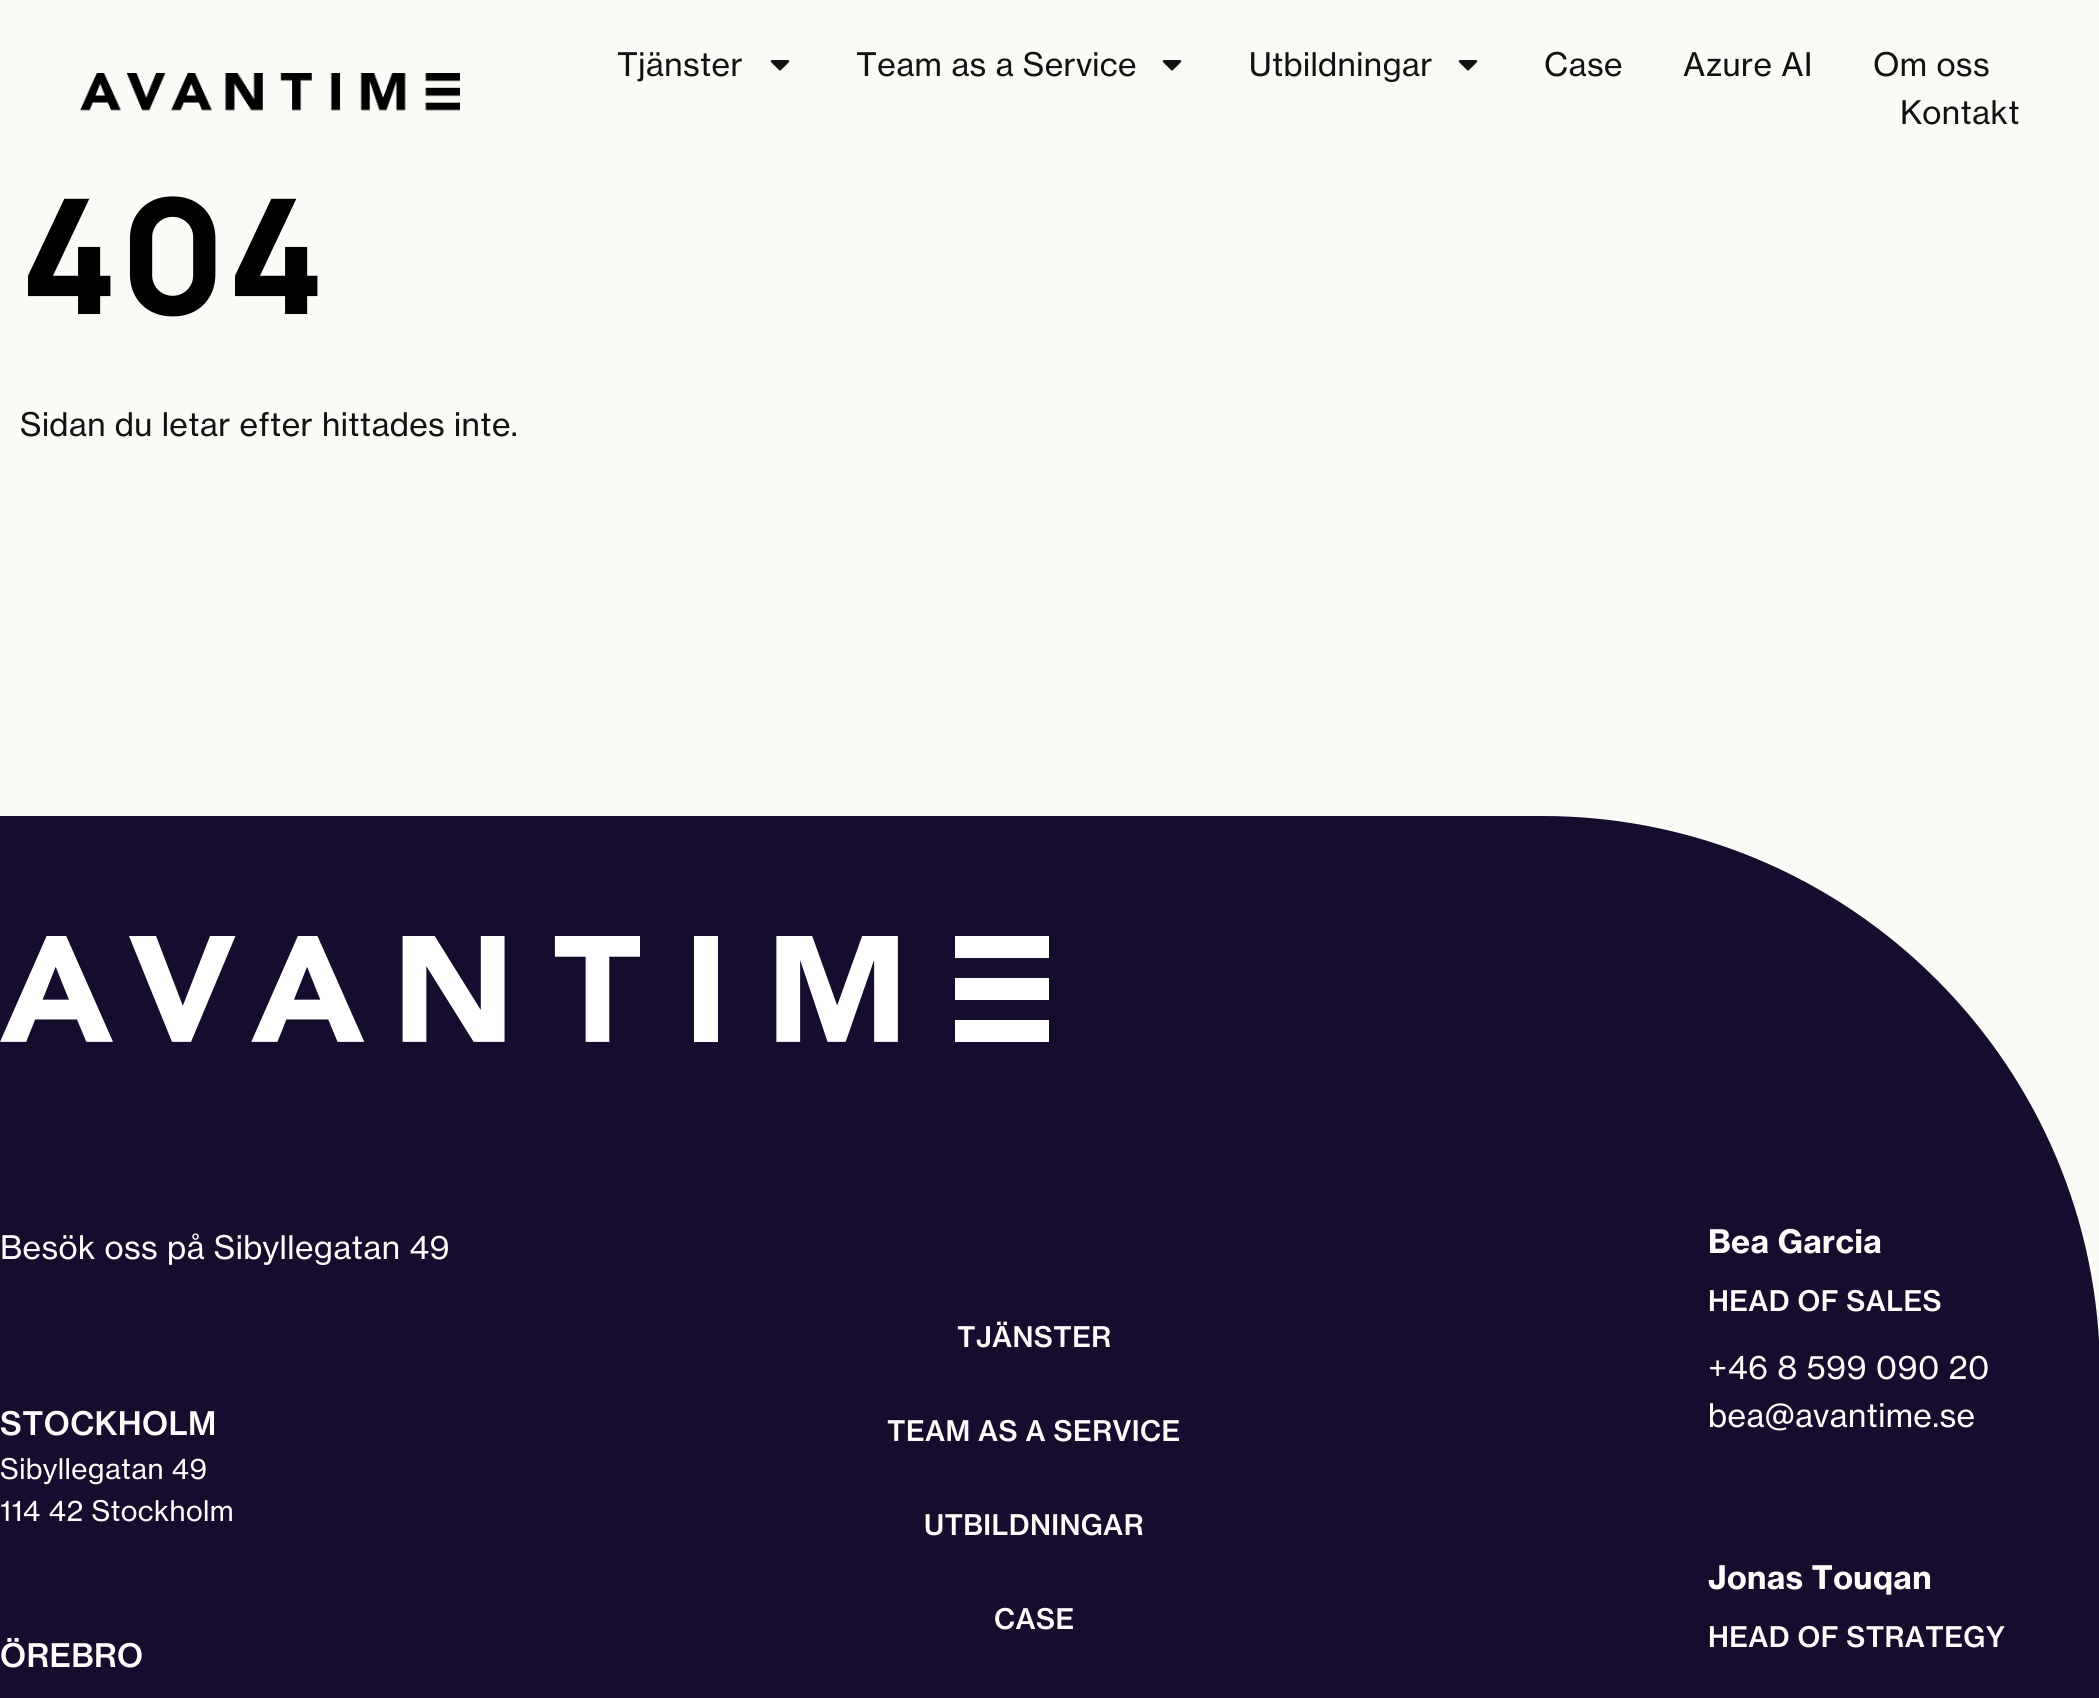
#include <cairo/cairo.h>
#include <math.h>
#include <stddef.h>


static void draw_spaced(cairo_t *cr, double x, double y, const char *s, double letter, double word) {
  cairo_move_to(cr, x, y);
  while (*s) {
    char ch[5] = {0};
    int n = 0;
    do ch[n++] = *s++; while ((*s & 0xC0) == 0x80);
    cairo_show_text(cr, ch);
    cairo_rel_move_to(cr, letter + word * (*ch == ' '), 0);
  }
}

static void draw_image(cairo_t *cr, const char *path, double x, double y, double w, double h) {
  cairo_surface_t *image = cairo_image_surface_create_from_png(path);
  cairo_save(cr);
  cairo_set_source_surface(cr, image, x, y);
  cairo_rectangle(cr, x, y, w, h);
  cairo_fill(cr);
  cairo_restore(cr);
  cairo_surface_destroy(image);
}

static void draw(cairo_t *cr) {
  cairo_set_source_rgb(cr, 250 / 255.0, 250 / 255.0, 247 / 255.0);
  cairo_paint(cr);
  draw_image(cr, "images/1.png", 80, 73, 380, 38);
  draw_image(cr, "images/2.png", 770, 60, 20, 11);
  draw_image(cr, "images/2.png", 1162, 60, 20, 11);
  draw_image(cr, "images/2.png", 1458, 60, 20, 11);
  cairo_set_source_rgb(cr, 22 / 255.0, 12 / 255.0, 46 / 255.0);
  cairo_new_path(cr);
  cairo_move_to(cr, 0, 816);
  cairo_line_to(cr, 1542, 816);
  cairo_curve_to(cr, 1850, 816, 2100, 1066, 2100, 1374);
  cairo_line_to(cr, 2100, 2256);
  cairo_line_to(cr, 0, 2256);
  cairo_close_path(cr);
  cairo_fill(cr);
  draw_image(cr, "images/3.png", 0, 936, 1049, 106);
  cairo_select_font_face(cr, "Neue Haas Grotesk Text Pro", CAIRO_FONT_SLANT_NORMAL, CAIRO_FONT_WEIGHT_NORMAL);
  cairo_set_font_size(cr, 32);
  cairo_set_source_rgb(cr, 18 / 255.0, 18 / 255.0, 18 / 255.0);
  draw_spaced(cr, 617, 76, "Tjänster", 0.4, 0);
  draw_spaced(cr, 856, 76, "Team as a Service", 0.4, 0);
  draw_spaced(cr, 1249, 76, "Utbildningar", 0.4, 0);
  draw_spaced(cr, 1544, 76, "Case", 0.4, 0);
  draw_spaced(cr, 1683, 76, "Azure AI", 0.4, 0);
  draw_spaced(cr, 1873, 76, "Om oss", 0.4, 0);
  draw_spaced(cr, 1900, 124, "Kontakt", 0.4, 0);
  cairo_select_font_face(cr, "Manrope ExtraBold", CAIRO_FONT_SLANT_NORMAL, CAIRO_FONT_WEIGHT_NORMAL);
  cairo_set_font_size(cr, 160);
  cairo_set_source_rgb(cr, 0, 0, 0);
  draw_spaced(cr, 20, 314, "404", 0.4, 0);
  cairo_select_font_face(cr, "Neue Haas Grotesk Text Pro", CAIRO_FONT_SLANT_NORMAL, CAIRO_FONT_WEIGHT_NORMAL);
  cairo_set_font_size(cr, 32);
  cairo_set_source_rgb(cr, 18 / 255.0, 18 / 255.0, 18 / 255.0);
  draw_spaced(cr, 20, 436, "Sidan du letar efter hittades inte.", 0.4, 0);
  cairo_set_source_rgb(cr, 1, 252 / 255.0, 252 / 255.0);
  draw_spaced(cr, 0, 1259, "Besök oss på Sibyllegatan 49", 0.4, 0);
  cairo_select_font_face(cr, "Neue Haas Grotesk Text Pro Medium", CAIRO_FONT_SLANT_NORMAL, CAIRO_FONT_WEIGHT_NORMAL);
  draw_spaced(cr, 0, 1435, "STOCKHOLM", 0.4, 0);
  cairo_select_font_face(cr, "Neue Haas Grotesk Text Pro", CAIRO_FONT_SLANT_NORMAL, CAIRO_FONT_WEIGHT_NORMAL);
  cairo_set_font_size(cr, 28);
  draw_spaced(cr, 0, 1479, "Sibyllegatan 49", 0.4, 0);
  draw_spaced(cr, 0, 1521, "114 42 Stockholm", 0.4, 0);
  cairo_select_font_face(cr, "Neue Haas Grotesk Text Pro Medium", CAIRO_FONT_SLANT_NORMAL, CAIRO_FONT_WEIGHT_NORMAL);
  cairo_set_font_size(cr, 32);
  draw_spaced(cr, 0, 1667, "ÖREBRO", 0.4, 0);
  cairo_set_font_size(cr, 28);
  draw_spaced(cr, 957, 1347, "TJÄNSTER", 0.4, 0);
  draw_spaced(cr, 887, 1441, "TEAM AS A SERVICE", 0.4, 0);
  draw_spaced(cr, 924, 1535, "UTBILDNINGAR", 0.4, 0);
  draw_spaced(cr, 994, 1629, "CASE", 0.4, 0);
  cairo_select_font_face(cr, "Neue Haas Grotesk Text Pro", CAIRO_FONT_SLANT_NORMAL, CAIRO_FONT_WEIGHT_BOLD);
  cairo_set_font_size(cr, 32);
  draw_spaced(cr, 1708, 1253, "Bea Garcia", 0.4, 0);
  cairo_select_font_face(cr, "Neue Haas Grotesk Text Pro Medium", CAIRO_FONT_SLANT_NORMAL, CAIRO_FONT_WEIGHT_NORMAL);
  cairo_set_font_size(cr, 28);
  draw_spaced(cr, 1708, 1311, "HEAD OF SALES", 0.4, 0);
  cairo_select_font_face(cr, "Neue Haas Grotesk Text Pro", CAIRO_FONT_SLANT_NORMAL, CAIRO_FONT_WEIGHT_NORMAL);
  cairo_set_font_size(cr, 32);
  draw_spaced(cr, 1708, 1379, "+46 8 599 090 20", 0.4, 0);
  draw_spaced(cr, 1708, 1427, "bea@avantime.se", 0.4, 0);
  cairo_select_font_face(cr, "Neue Haas Grotesk Text Pro", CAIRO_FONT_SLANT_NORMAL, CAIRO_FONT_WEIGHT_BOLD);
  draw_spaced(cr, 1708, 1589, "Jonas Touqan", 0.4, 0);
  cairo_select_font_face(cr, "Neue Haas Grotesk Text Pro Medium", CAIRO_FONT_SLANT_NORMAL, CAIRO_FONT_WEIGHT_NORMAL);
  cairo_set_font_size(cr, 28);
  draw_spaced(cr, 1708, 1647, "HEAD OF STRATEGY", 0.4, 0);
}

int main(void) {
  cairo_surface_t *surface = cairo_image_surface_create(CAIRO_FORMAT_RGB24, 2099, 1698);
  cairo_t *cr = cairo_create(surface);
  cairo_font_options_t *options = cairo_font_options_create();
  cairo_font_options_set_hint_metrics(options, CAIRO_HINT_METRICS_OFF);
  cairo_font_options_set_hint_style(options, CAIRO_HINT_STYLE_NONE);
  cairo_set_font_options(cr, options);
  cairo_set_miter_limit(cr, 4);
  draw(cr);
  cairo_surface_write_to_png(surface, "out.png");
  cairo_font_options_destroy(options);
  cairo_destroy(cr);
  cairo_surface_destroy(surface);
  return 0;
}
